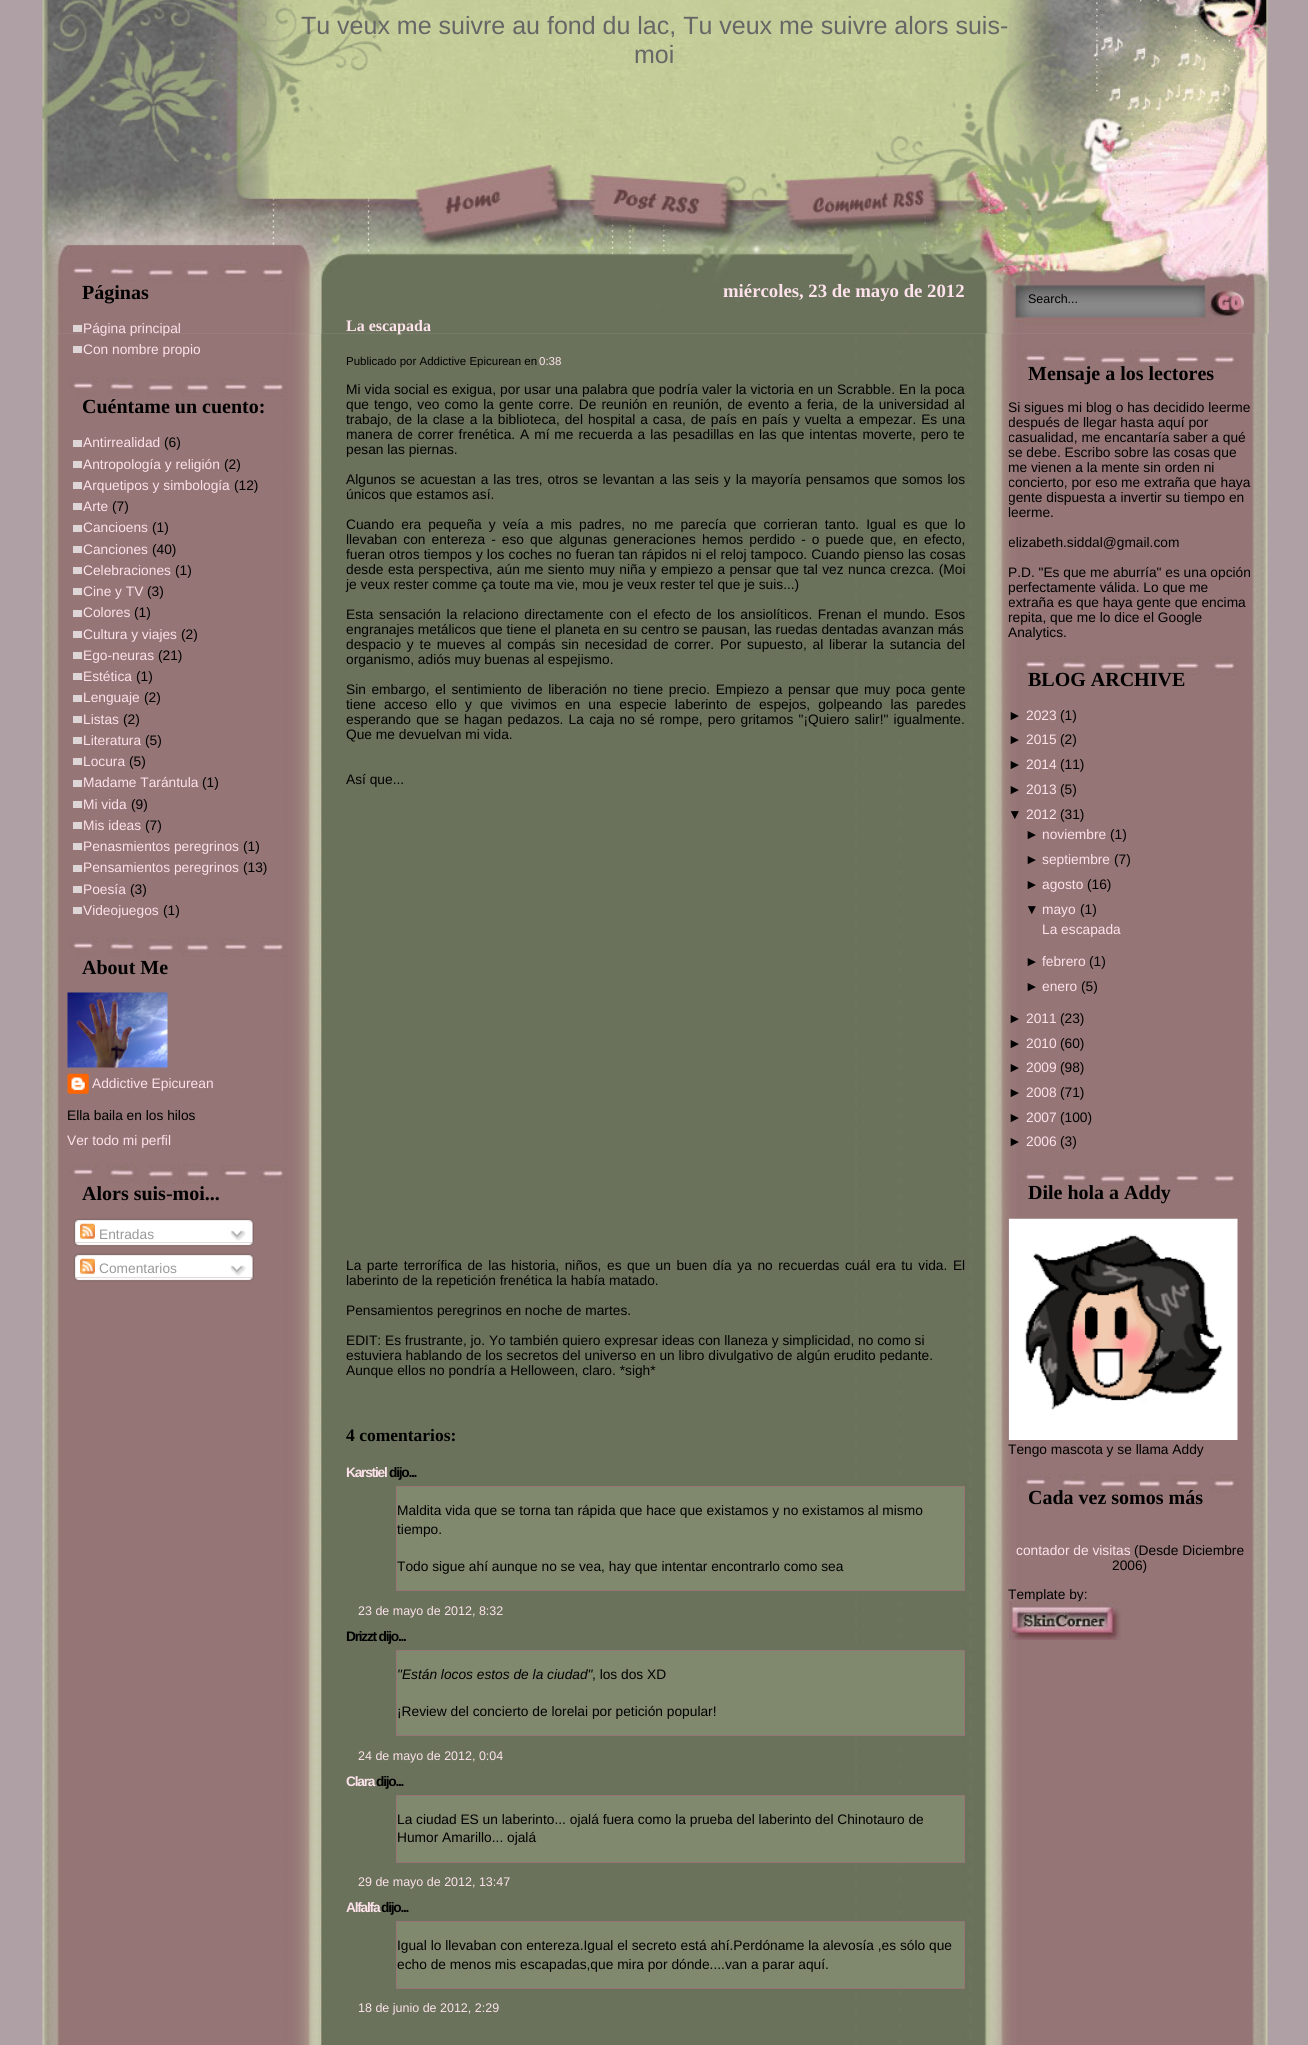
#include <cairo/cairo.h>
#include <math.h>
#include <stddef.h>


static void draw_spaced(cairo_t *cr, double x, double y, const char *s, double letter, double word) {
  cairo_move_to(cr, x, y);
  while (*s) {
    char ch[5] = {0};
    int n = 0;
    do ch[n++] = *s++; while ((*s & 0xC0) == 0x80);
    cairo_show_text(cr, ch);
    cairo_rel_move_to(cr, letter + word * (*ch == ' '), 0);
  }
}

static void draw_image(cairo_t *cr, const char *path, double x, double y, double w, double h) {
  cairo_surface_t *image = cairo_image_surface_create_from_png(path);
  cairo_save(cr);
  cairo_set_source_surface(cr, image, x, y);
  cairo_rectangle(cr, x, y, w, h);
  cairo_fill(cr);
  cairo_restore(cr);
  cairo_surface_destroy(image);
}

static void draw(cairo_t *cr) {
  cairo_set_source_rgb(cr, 174 / 255.0, 160 / 255.0, 164 / 255.0);
  cairo_paint(cr);
  draw_image(cr, "images/1.png", 42, 0, 1226, 165);
  draw_image(cr, "images/2.png", 42, 165, 1227, 169);
  draw_image(cr, "images/3.png", 443, 189, 60, 27);
  draw_image(cr, "images/4.png", 613, 188, 90, 27);
  draw_image(cr, "images/5.png", 808, 187, 117, 27);
  draw_image(cr, "images/6.png", 42, 333, 1226, 1712);
  draw_image(cr, "images/7.png", 68, 262, 217, 20);
  cairo_set_source_rgb(cr, 222 / 255.0, 213 / 255.0, 214 / 255.0);
  cairo_rectangle(cr, 73, 325, 9, 7);
  cairo_fill(cr);
  cairo_rectangle(cr, 73, 346, 9, 7);
  cairo_fill(cr);
  draw_image(cr, "images/8.png", 68, 377, 218, 20);
  cairo_rectangle(cr, 73, 440, 9, 7);
  cairo_fill(cr);
  cairo_rectangle(cr, 73, 461, 9, 7);
  cairo_fill(cr);
  cairo_rectangle(cr, 73, 482, 9, 7);
  cairo_fill(cr);
  cairo_rectangle(cr, 73, 503, 9, 7);
  cairo_fill(cr);
  cairo_rectangle(cr, 73, 525, 9, 7);
  cairo_fill(cr);
  cairo_rectangle(cr, 73, 546, 9, 7);
  cairo_fill(cr);
  cairo_rectangle(cr, 73, 567, 9, 7);
  cairo_fill(cr);
  cairo_rectangle(cr, 73, 588, 9, 7);
  cairo_fill(cr);
  cairo_rectangle(cr, 73, 610, 9, 7);
  cairo_fill(cr);
  cairo_rectangle(cr, 73, 631, 9, 7);
  cairo_fill(cr);
  cairo_rectangle(cr, 73, 652, 9, 7);
  cairo_fill(cr);
  cairo_rectangle(cr, 73, 673, 9, 7);
  cairo_fill(cr);
  cairo_rectangle(cr, 73, 695, 9, 7);
  cairo_fill(cr);
  cairo_rectangle(cr, 73, 716, 9, 7);
  cairo_fill(cr);
  cairo_rectangle(cr, 73, 737, 9, 7);
  cairo_fill(cr);
  cairo_rectangle(cr, 73, 758, 9, 7);
  cairo_fill(cr);
  cairo_rectangle(cr, 73, 780, 9, 7);
  cairo_fill(cr);
  cairo_rectangle(cr, 73, 801, 9, 7);
  cairo_fill(cr);
  cairo_rectangle(cr, 73, 822, 9, 7);
  cairo_fill(cr);
  cairo_rectangle(cr, 73, 843, 9, 7);
  cairo_fill(cr);
  cairo_rectangle(cr, 73, 865, 9, 7);
  cairo_fill(cr);
  cairo_rectangle(cr, 73, 886, 9, 7);
  cairo_fill(cr);
  cairo_rectangle(cr, 73, 907, 9, 7);
  cairo_fill(cr);
  draw_image(cr, "images/9.png", 68, 937, 218, 20);
  draw_image(cr, "images/10.png", 67, 992, 101, 76);
  draw_image(cr, "images/11.png", 67, 1073, 22, 21);
  draw_image(cr, "images/12.png", 68, 1164, 218, 20);
  draw_image(cr, "images/13.png", 73, 1218, 181, 25);
  draw_image(cr, "images/14.png", 80, 1223, 15, 16);
  draw_image(cr, "images/15.png", 230, 1230, 16, 11);
  draw_image(cr, "images/16.png", 74, 1242, 180, 5);
  draw_image(cr, "images/13.png", 73, 1253, 181, 25);
  draw_image(cr, "images/14.png", 80, 1258, 15, 16);
  draw_image(cr, "images/15.png", 230, 1265, 16, 11);
  draw_image(cr, "images/16.png", 74, 1277, 180, 5);
  cairo_set_source_rgb(cr, 128 / 255.0, 137 / 255.0, 110 / 255.0);
  cairo_rectangle(cr, 396.5, 1486.5, 568, 104);
  cairo_fill_preserve(cr);
  cairo_set_source_rgb(cr, 149 / 255.0, 117 / 255.0, 118 / 255.0);
  cairo_set_line_width(cr, 1);
  cairo_stroke(cr);
  cairo_set_source_rgb(cr, 128 / 255.0, 137 / 255.0, 110 / 255.0);
  cairo_rectangle(cr, 396.5, 1650.5, 568, 85);
  cairo_fill_preserve(cr);
  cairo_set_source_rgb(cr, 149 / 255.0, 117 / 255.0, 118 / 255.0);
  cairo_stroke(cr);
  cairo_set_source_rgb(cr, 128 / 255.0, 137 / 255.0, 110 / 255.0);
  cairo_rectangle(cr, 396.5, 1795.5, 568, 67);
  cairo_fill_preserve(cr);
  cairo_set_source_rgb(cr, 149 / 255.0, 117 / 255.0, 118 / 255.0);
  cairo_stroke(cr);
  cairo_set_source_rgb(cr, 128 / 255.0, 137 / 255.0, 110 / 255.0);
  cairo_rectangle(cr, 396.5, 1921.5, 568, 67);
  cairo_fill_preserve(cr);
  cairo_set_source_rgb(cr, 149 / 255.0, 117 / 255.0, 118 / 255.0);
  cairo_stroke(cr);
  draw_image(cr, "images/17.png", 1209, 287, 40, 32);
  draw_image(cr, "images/18.png", 1020, 350, 220, 20);
  draw_image(cr, "images/19.png", 1020, 656, 220, 20);
  draw_image(cr, "images/20.png", 1020, 1169, 220, 20);
  draw_image(cr, "images/21.png", 1008, 1218, 230, 222);
  draw_image(cr, "images/20.png", 1020, 1474, 220, 20);
  cairo_select_font_face(cr, "Liberation Sans", CAIRO_FONT_SLANT_NORMAL, CAIRO_FONT_WEIGHT_NORMAL);
  cairo_set_font_size(cr, 25);
  cairo_set_source_rgb(cr, 102 / 255.0, 102 / 255.0, 102 / 255.0);
  cairo_move_to(cr, 301, 34);
  cairo_show_text(cr, "Tu veux me suivre au fond du lac, Tu veux me suivre alors suis-");
  cairo_move_to(cr, 634, 63);
  cairo_show_text(cr, "moi");
  cairo_select_font_face(cr, "Liberation Serif", CAIRO_FONT_SLANT_NORMAL, CAIRO_FONT_WEIGHT_BOLD);
  cairo_set_font_size(cr, 20);
  cairo_set_source_rgb(cr, 0, 0, 0);
  cairo_move_to(cr, 82, 299);
  cairo_show_text(cr, "Páginas");
  cairo_select_font_face(cr, "Liberation Sans", CAIRO_FONT_SLANT_NORMAL, CAIRO_FONT_WEIGHT_NORMAL);
  cairo_set_font_size(cr, 13.75);
  cairo_set_source_rgb(cr, 253 / 255.0, 226 / 255.0, 235 / 255.0);
  cairo_move_to(cr, 83, 333);
  cairo_show_text(cr, "Página principal");
  cairo_move_to(cr, 83, 354);
  cairo_show_text(cr, "Con nombre propio");
  cairo_select_font_face(cr, "Liberation Serif", CAIRO_FONT_SLANT_NORMAL, CAIRO_FONT_WEIGHT_BOLD);
  cairo_set_font_size(cr, 20);
  cairo_set_source_rgb(cr, 0, 0, 0);
  cairo_move_to(cr, 82, 413);
  cairo_show_text(cr, "Cuéntame un cuento:");
  cairo_select_font_face(cr, "Liberation Sans", CAIRO_FONT_SLANT_NORMAL, CAIRO_FONT_WEIGHT_NORMAL);
  cairo_set_font_size(cr, 13.75);
  cairo_set_source_rgb(cr, 253 / 255.0, 226 / 255.0, 235 / 255.0);
  cairo_move_to(cr, 83, 447);
  cairo_show_text(cr, "Antirrealidad");
  cairo_set_source_rgb(cr, 0, 0, 0);
  cairo_move_to(cr, 164, 447);
  cairo_show_text(cr, "(6)");
  cairo_set_source_rgb(cr, 253 / 255.0, 226 / 255.0, 235 / 255.0);
  cairo_move_to(cr, 83, 469);
  cairo_show_text(cr, "Antropología y religión");
  cairo_set_source_rgb(cr, 0, 0, 0);
  cairo_move_to(cr, 224, 469);
  cairo_show_text(cr, "(2)");
  cairo_set_source_rgb(cr, 253 / 255.0, 226 / 255.0, 235 / 255.0);
  cairo_move_to(cr, 83, 490);
  cairo_show_text(cr, "Arquetipos y simbología");
  cairo_set_source_rgb(cr, 0, 0, 0);
  cairo_move_to(cr, 234, 490);
  cairo_show_text(cr, "(12)");
  cairo_set_source_rgb(cr, 253 / 255.0, 226 / 255.0, 235 / 255.0);
  cairo_move_to(cr, 83, 511);
  cairo_show_text(cr, "Arte");
  cairo_set_source_rgb(cr, 0, 0, 0);
  cairo_move_to(cr, 112, 511);
  cairo_show_text(cr, "(7)");
  cairo_set_source_rgb(cr, 253 / 255.0, 226 / 255.0, 235 / 255.0);
  cairo_move_to(cr, 83, 532);
  cairo_show_text(cr, "Cancioens");
  cairo_set_source_rgb(cr, 0, 0, 0);
  cairo_move_to(cr, 152, 532);
  cairo_show_text(cr, "(1)");
  cairo_set_source_rgb(cr, 253 / 255.0, 226 / 255.0, 235 / 255.0);
  cairo_move_to(cr, 83, 554);
  cairo_show_text(cr, "Canciones");
  cairo_set_source_rgb(cr, 0, 0, 0);
  cairo_move_to(cr, 152, 554);
  cairo_show_text(cr, "(40)");
  cairo_set_source_rgb(cr, 253 / 255.0, 226 / 255.0, 235 / 255.0);
  cairo_move_to(cr, 83, 575);
  cairo_show_text(cr, "Celebraciones");
  cairo_set_source_rgb(cr, 0, 0, 0);
  cairo_move_to(cr, 175, 575);
  cairo_show_text(cr, "(1)");
  cairo_set_source_rgb(cr, 253 / 255.0, 226 / 255.0, 235 / 255.0);
  cairo_move_to(cr, 83, 596);
  cairo_show_text(cr, "Cine y TV");
  cairo_set_source_rgb(cr, 0, 0, 0);
  cairo_move_to(cr, 147, 596);
  cairo_show_text(cr, "(3)");
  cairo_set_source_rgb(cr, 253 / 255.0, 226 / 255.0, 235 / 255.0);
  cairo_move_to(cr, 83, 617);
  cairo_show_text(cr, "Colores");
  cairo_set_source_rgb(cr, 0, 0, 0);
  cairo_move_to(cr, 134, 617);
  cairo_show_text(cr, "(1)");
  cairo_set_source_rgb(cr, 253 / 255.0, 226 / 255.0, 235 / 255.0);
  cairo_move_to(cr, 83, 639);
  cairo_show_text(cr, "Cultura y viajes");
  cairo_set_source_rgb(cr, 0, 0, 0);
  cairo_move_to(cr, 181, 639);
  cairo_show_text(cr, "(2)");
  cairo_set_source_rgb(cr, 253 / 255.0, 226 / 255.0, 235 / 255.0);
  cairo_move_to(cr, 83, 660);
  cairo_show_text(cr, "Ego-neuras");
  cairo_set_source_rgb(cr, 0, 0, 0);
  cairo_move_to(cr, 158, 660);
  cairo_show_text(cr, "(21)");
  cairo_set_source_rgb(cr, 253 / 255.0, 226 / 255.0, 235 / 255.0);
  cairo_move_to(cr, 83, 681);
  cairo_show_text(cr, "Estética");
  cairo_set_source_rgb(cr, 0, 0, 0);
  cairo_move_to(cr, 136, 681);
  cairo_show_text(cr, "(1)");
  cairo_set_source_rgb(cr, 253 / 255.0, 226 / 255.0, 235 / 255.0);
  cairo_move_to(cr, 83, 702);
  cairo_show_text(cr, "Lenguaje");
  cairo_set_source_rgb(cr, 0, 0, 0);
  cairo_move_to(cr, 144, 702);
  cairo_show_text(cr, "(2)");
  cairo_set_source_rgb(cr, 253 / 255.0, 226 / 255.0, 235 / 255.0);
  cairo_move_to(cr, 83, 724);
  cairo_show_text(cr, "Listas");
  cairo_set_source_rgb(cr, 0, 0, 0);
  cairo_move_to(cr, 123, 724);
  cairo_show_text(cr, "(2)");
  cairo_set_source_rgb(cr, 253 / 255.0, 226 / 255.0, 235 / 255.0);
  cairo_move_to(cr, 83, 745);
  cairo_show_text(cr, "Literatura");
  cairo_set_source_rgb(cr, 0, 0, 0);
  cairo_move_to(cr, 145, 745);
  cairo_show_text(cr, "(5)");
  cairo_set_source_rgb(cr, 253 / 255.0, 226 / 255.0, 235 / 255.0);
  cairo_move_to(cr, 83, 766);
  cairo_show_text(cr, "Locura");
  cairo_set_source_rgb(cr, 0, 0, 0);
  cairo_move_to(cr, 129, 766);
  cairo_show_text(cr, "(5)");
  cairo_set_source_rgb(cr, 253 / 255.0, 226 / 255.0, 235 / 255.0);
  cairo_move_to(cr, 83, 787);
  cairo_show_text(cr, "Madame Tarántula");
  cairo_set_source_rgb(cr, 0, 0, 0);
  cairo_move_to(cr, 202, 787);
  cairo_show_text(cr, "(1)");
  cairo_set_source_rgb(cr, 253 / 255.0, 226 / 255.0, 235 / 255.0);
  cairo_move_to(cr, 83, 809);
  cairo_show_text(cr, "Mi vida");
  cairo_set_source_rgb(cr, 0, 0, 0);
  cairo_move_to(cr, 131, 809);
  cairo_show_text(cr, "(9)");
  cairo_set_source_rgb(cr, 253 / 255.0, 226 / 255.0, 235 / 255.0);
  cairo_move_to(cr, 83, 830);
  cairo_show_text(cr, "Mis ideas");
  cairo_set_source_rgb(cr, 0, 0, 0);
  cairo_move_to(cr, 145, 830);
  cairo_show_text(cr, "(7)");
  cairo_set_source_rgb(cr, 253 / 255.0, 226 / 255.0, 235 / 255.0);
  cairo_move_to(cr, 83, 851);
  cairo_show_text(cr, "Penasmientos peregrinos");
  cairo_set_source_rgb(cr, 0, 0, 0);
  cairo_move_to(cr, 243, 851);
  cairo_show_text(cr, "(1)");
  cairo_set_source_rgb(cr, 253 / 255.0, 226 / 255.0, 235 / 255.0);
  cairo_move_to(cr, 83, 872);
  cairo_show_text(cr, "Pensamientos peregrinos");
  cairo_set_source_rgb(cr, 0, 0, 0);
  cairo_move_to(cr, 243, 872);
  cairo_show_text(cr, "(13)");
  cairo_set_source_rgb(cr, 253 / 255.0, 226 / 255.0, 235 / 255.0);
  cairo_move_to(cr, 83, 894);
  cairo_show_text(cr, "Poesía");
  cairo_set_source_rgb(cr, 0, 0, 0);
  cairo_move_to(cr, 130, 894);
  cairo_show_text(cr, "(3)");
  cairo_set_source_rgb(cr, 253 / 255.0, 226 / 255.0, 235 / 255.0);
  cairo_move_to(cr, 83, 915);
  cairo_show_text(cr, "Videojuegos");
  cairo_set_source_rgb(cr, 0, 0, 0);
  cairo_move_to(cr, 163, 915);
  cairo_show_text(cr, "(1)");
  cairo_select_font_face(cr, "Liberation Serif", CAIRO_FONT_SLANT_NORMAL, CAIRO_FONT_WEIGHT_BOLD);
  cairo_set_font_size(cr, 20);
  cairo_move_to(cr, 82, 974);
  cairo_show_text(cr, "About Me");
  cairo_select_font_face(cr, "Liberation Sans", CAIRO_FONT_SLANT_NORMAL, CAIRO_FONT_WEIGHT_NORMAL);
  cairo_set_font_size(cr, 13.75);
  cairo_set_source_rgb(cr, 253 / 255.0, 226 / 255.0, 235 / 255.0);
  cairo_move_to(cr, 92, 1088);
  cairo_show_text(cr, "Addictive Epicurean");
  cairo_set_source_rgb(cr, 0, 0, 0);
  cairo_move_to(cr, 67, 1120);
  cairo_show_text(cr, "Ella baila en los hilos");
  cairo_set_source_rgb(cr, 253 / 255.0, 226 / 255.0, 235 / 255.0);
  cairo_move_to(cr, 67, 1145);
  cairo_show_text(cr, "Ver todo mi perfil");
  cairo_select_font_face(cr, "Liberation Serif", CAIRO_FONT_SLANT_NORMAL, CAIRO_FONT_WEIGHT_BOLD);
  cairo_set_font_size(cr, 20);
  cairo_set_source_rgb(cr, 0, 0, 0);
  cairo_move_to(cr, 82, 1200);
  cairo_show_text(cr, "Alors suis-moi...");
  cairo_select_font_face(cr, "Liberation Sans", CAIRO_FONT_SLANT_NORMAL, CAIRO_FONT_WEIGHT_NORMAL);
  cairo_set_font_size(cr, 13.75);
  cairo_set_source_rgb(cr, 153 / 255.0, 153 / 255.0, 153 / 255.0);
  cairo_move_to(cr, 99, 1239);
  cairo_show_text(cr, "Entradas");
  cairo_move_to(cr, 99, 1273);
  cairo_show_text(cr, "Comentarios");
  cairo_select_font_face(cr, "Liberation Serif", CAIRO_FONT_SLANT_NORMAL, CAIRO_FONT_WEIGHT_BOLD);
  cairo_set_font_size(cr, 18.75);
  cairo_set_source_rgb(cr, 253 / 255.0, 226 / 255.0, 235 / 255.0);
  cairo_move_to(cr, 723, 297);
  cairo_show_text(cr, "miércoles, 23 de mayo de 2012");
  cairo_set_font_size(cr, 16);
  cairo_move_to(cr, 346, 331);
  cairo_show_text(cr, "La escapada");
  cairo_select_font_face(cr, "Liberation Sans", CAIRO_FONT_SLANT_NORMAL, CAIRO_FONT_WEIGHT_NORMAL);
  cairo_set_font_size(cr, 11.5);
  cairo_set_source_rgb(cr, 0, 0, 0);
  cairo_move_to(cr, 346, 365);
  cairo_show_text(cr, "Publicado por Addictive Epicurean en");
  cairo_set_source_rgb(cr, 253 / 255.0, 226 / 255.0, 235 / 255.0);
  cairo_move_to(cr, 539, 365);
  cairo_show_text(cr, "0:38");
  cairo_set_font_size(cr, 13.75);
  cairo_set_source_rgb(cr, 0, 0, 0);
  draw_spaced(cr, 346, 394, "Mi vida social es exigua, por usar una palabra que podría valer la victoria en un Scrabble. En la poca", 0, 0.25);
  draw_spaced(cr, 346, 409, "que tengo, veo como la gente corre. De reunión en reunión, de evento a feria, de la universidad al", 0, 1.25);
  draw_spaced(cr, 346, 424, "trabajo, de la clase a la biblioteca, del hospital a casa, de país en país y vuelta a empezar. Es una", 0, 1.1);
  draw_spaced(cr, 346, 439, "manera de correr frenética. A mí me recuerda a las pesadillas en las que intentas moverte, pero te", 0, 1.1);
  cairo_move_to(cr, 346, 454);
  cairo_show_text(cr, "pesan las piernas.");
  draw_spaced(cr, 346, 484, "Algunos se acuestan a las tres, otros se levantan a las seis y la mayoría pensamos que somos los", 0, 1.1);
  cairo_move_to(cr, 346, 499);
  cairo_show_text(cr, "únicos que estamos así.");
  draw_spaced(cr, 346, 529, "Cuando era pequeña y veía a mis padres, no me parecía que corrieran tanto. Igual es que lo", 0, 3.25);
  draw_spaced(cr, 346, 544, "llevaban con entereza - eso que algunas generaciones hemos perdido - o puede que, en efecto,", 0, 2.25);
  draw_spaced(cr, 346, 559, "fueran otros tiempos y los coches no fueran tan rápidos ni el reloj tampoco. Cuando pienso las cosas", 0, 0.25);
  draw_spaced(cr, 346, 574, "desde esta perspectiva, aún me siento muy niña y empiezo a pensar que tal vez nunca crezca. (Moi", 0, 0.6);
  cairo_move_to(cr, 346, 589);
  cairo_show_text(cr, "je veux rester comme ça toute ma vie, mou je veux rester tel que je suis...)");
  draw_spaced(cr, 346, 619, "Esta sensación la relaciono directamente con el efecto de los ansiolíticos. Frenan el mundo. Esos", 0, 1.75);
  cairo_move_to(cr, 346, 634);
  cairo_show_text(cr, "engranajes metálicos que tiene el planeta en su centro se pausan, las ruedas dentadas avanzan más");
  draw_spaced(cr, 346, 649, "despacio y te mueves al compás sin necesidad de correr. Por supuesto, al liberar la sutancia del", 0, 2);
  cairo_move_to(cr, 346, 664);
  cairo_show_text(cr, "organismo, adiós muy buenas al espejismo.");
  draw_spaced(cr, 346, 694, "Sin embargo, el sentimiento de liberación no tiene precio. Empiezo a pensar que muy poca gente", 0, 1.75);
  draw_spaced(cr, 346, 709, "tiene acceso ello y que vivimos en una especie laberinto de espejos, golpeando las paredes", 0, 4.25);
  draw_spaced(cr, 346, 724, "esperando que se hagan pedazos. La caja no sé rompe, pero gritamos \"¡Quiero salir!\" igualmente.", 0, 1.4);
  cairo_move_to(cr, 346, 739);
  cairo_show_text(cr, "Que me devuelvan mi vida.");
  cairo_move_to(cr, 346, 784);
  cairo_show_text(cr, "Así que...");
  draw_spaced(cr, 346, 1270, "La parte terrorífica de las", 0, 1.75);
  draw_spaced(cr, 511, 1270, "historia, niños, es que un buen día ya no recuerdas cuál era tu vida. El", 0, 1.75);
  cairo_move_to(cr, 346, 1285);
  cairo_show_text(cr, "laberinto de la repetición frenética la había matado.");
  cairo_move_to(cr, 346, 1315);
  cairo_show_text(cr, "Pensamientos peregrinos en noche de martes.");
  cairo_move_to(cr, 346, 1345);
  cairo_show_text(cr, "EDIT: Es frustrante, jo. Yo también quiero expresar ideas con llaneza y simplicidad, no como si");
  cairo_move_to(cr, 346, 1360);
  cairo_show_text(cr, "estuviera hablando de los secretos del universo en un libro divulgativo de algún erudito pedante.");
  cairo_move_to(cr, 346, 1375);
  cairo_show_text(cr, "Aunque ellos no pondría a Helloween, claro. *sigh*");
  cairo_select_font_face(cr, "Liberation Serif", CAIRO_FONT_SLANT_NORMAL, CAIRO_FONT_WEIGHT_BOLD);
  cairo_set_font_size(cr, 17.5);
  cairo_move_to(cr, 346, 1441);
  cairo_show_text(cr, "4 comentarios:");
  cairo_select_font_face(cr, "Liberation Sans", CAIRO_FONT_SLANT_NORMAL, CAIRO_FONT_WEIGHT_BOLD);
  cairo_set_font_size(cr, 13.75);
  cairo_set_source_rgb(cr, 253 / 255.0, 226 / 255.0, 235 / 255.0);
  draw_spaced(cr, 346, 1477, "Karstiel", -1.25, 0);
  cairo_set_source_rgb(cr, 0, 0, 0);
  draw_spaced(cr, 389, 1477, "dijo...", -1.25, 0);
  cairo_select_font_face(cr, "Liberation Sans", CAIRO_FONT_SLANT_NORMAL, CAIRO_FONT_WEIGHT_NORMAL);
  cairo_move_to(cr, 397, 1515);
  cairo_show_text(cr, "Maldita vida que se torna tan rápida que hace que existamos y no existamos al mismo");
  cairo_move_to(cr, 397, 1534);
  cairo_show_text(cr, "tiempo.");
  cairo_move_to(cr, 397, 1571);
  cairo_show_text(cr, "Todo sigue ahí aunque no se vea, hay que intentar encontrarlo como sea");
  cairo_set_font_size(cr, 12.5);
  cairo_set_source_rgb(cr, 253 / 255.0, 226 / 255.0, 235 / 255.0);
  cairo_move_to(cr, 358, 1615);
  cairo_show_text(cr, "23 de mayo de 2012, 8:32");
  cairo_select_font_face(cr, "Liberation Sans", CAIRO_FONT_SLANT_NORMAL, CAIRO_FONT_WEIGHT_BOLD);
  cairo_set_font_size(cr, 13.75);
  cairo_set_source_rgb(cr, 0, 0, 0);
  draw_spaced(cr, 346, 1641, "Drizzt dijo...", -1.25, 0);
  cairo_select_font_face(cr, "Liberation Sans", CAIRO_FONT_SLANT_ITALIC, CAIRO_FONT_WEIGHT_NORMAL);
  cairo_move_to(cr, 397, 1679);
  cairo_show_text(cr, "\"Están locos estos de la ciudad\"");
  cairo_select_font_face(cr, "Liberation Sans", CAIRO_FONT_SLANT_NORMAL, CAIRO_FONT_WEIGHT_NORMAL);
  cairo_move_to(cr, 592, 1679);
  cairo_show_text(cr, ", los dos XD");
  cairo_move_to(cr, 397, 1716);
  cairo_show_text(cr, "¡Review del concierto de lorelai por petición popular!");
  cairo_set_font_size(cr, 12.5);
  cairo_set_source_rgb(cr, 253 / 255.0, 226 / 255.0, 235 / 255.0);
  cairo_move_to(cr, 358, 1760);
  cairo_show_text(cr, "24 de mayo de 2012, 0:04");
  cairo_select_font_face(cr, "Liberation Sans", CAIRO_FONT_SLANT_NORMAL, CAIRO_FONT_WEIGHT_BOLD);
  cairo_set_font_size(cr, 13.75);
  draw_spaced(cr, 346, 1786, "Clara", -1.25, 0);
  cairo_set_source_rgb(cr, 0, 0, 0);
  draw_spaced(cr, 376, 1786, "dijo...", -1.25, 0);
  cairo_select_font_face(cr, "Liberation Sans", CAIRO_FONT_SLANT_NORMAL, CAIRO_FONT_WEIGHT_NORMAL);
  cairo_move_to(cr, 397, 1824);
  cairo_show_text(cr, "La ciudad ES un laberinto... ojalá fuera como la prueba del laberinto del Chinotauro de");
  cairo_move_to(cr, 397, 1842);
  cairo_show_text(cr, "Humor Amarillo... ojalá");
  cairo_set_font_size(cr, 12.5);
  cairo_set_source_rgb(cr, 253 / 255.0, 226 / 255.0, 235 / 255.0);
  cairo_move_to(cr, 358, 1886);
  cairo_show_text(cr, "29 de mayo de 2012, 13:47");
  cairo_select_font_face(cr, "Liberation Sans", CAIRO_FONT_SLANT_NORMAL, CAIRO_FONT_WEIGHT_BOLD);
  cairo_set_font_size(cr, 13.75);
  draw_spaced(cr, 346, 1912, "Alfalfa", -1.25, 0);
  cairo_set_source_rgb(cr, 0, 0, 0);
  draw_spaced(cr, 381, 1912, "dijo...", -1.25, 0);
  cairo_select_font_face(cr, "Liberation Sans", CAIRO_FONT_SLANT_NORMAL, CAIRO_FONT_WEIGHT_NORMAL);
  cairo_move_to(cr, 397, 1950);
  cairo_show_text(cr, "Igual lo llevaban con entereza.Igual el secreto está ahí.Perdóname la alevosía ,es sólo que");
  cairo_move_to(cr, 397, 1969);
  cairo_show_text(cr, "echo de menos mis escapadas,que mira por dónde....van a parar aquí.");
  cairo_set_font_size(cr, 12.5);
  cairo_set_source_rgb(cr, 253 / 255.0, 226 / 255.0, 235 / 255.0);
  cairo_move_to(cr, 358, 2012);
  cairo_show_text(cr, "18 de junio de 2012, 2:29");
  cairo_set_source_rgb(cr, 0, 0, 0);
  cairo_move_to(cr, 1028, 303);
  cairo_show_text(cr, "Search...");
  cairo_select_font_face(cr, "Liberation Serif", CAIRO_FONT_SLANT_NORMAL, CAIRO_FONT_WEIGHT_BOLD);
  cairo_set_font_size(cr, 20);
  cairo_move_to(cr, 1028, 380);
  cairo_show_text(cr, "Mensaje a los lectores");
  cairo_select_font_face(cr, "Liberation Sans", CAIRO_FONT_SLANT_NORMAL, CAIRO_FONT_WEIGHT_NORMAL);
  cairo_set_font_size(cr, 13.75);
  cairo_move_to(cr, 1008, 412);
  cairo_show_text(cr, "Si sigues mi blog o has decidido leerme");
  cairo_save(cr);
  cairo_rectangle(cr, 1009, 334, 259, 1322);
  cairo_clip(cr);
  cairo_move_to(cr, 1008, 427);
  cairo_show_text(cr, "después de llegar hasta aquí por");
  cairo_move_to(cr, 1008, 442);
  cairo_show_text(cr, "casualidad, me encantaría saber a qué");
  cairo_restore(cr);
  cairo_move_to(cr, 1008, 457);
  cairo_show_text(cr, "se debe. Escribo sobre las cosas que");
  cairo_move_to(cr, 1008, 472);
  cairo_show_text(cr, "me vienen a la mente sin orden ni");
  cairo_save(cr);
  cairo_rectangle(cr, 1009, 334, 259, 1322);
  cairo_clip(cr);
  cairo_move_to(cr, 1008, 487);
  cairo_show_text(cr, "concierto, por eso me extraña que haya");
  cairo_move_to(cr, 1008, 502);
  cairo_show_text(cr, "gente dispuesta a invertir su tiempo en");
  cairo_restore(cr);
  cairo_move_to(cr, 1008, 517);
  cairo_show_text(cr, "leerme.");
  cairo_save(cr);
  cairo_rectangle(cr, 1009, 334, 259, 1322);
  cairo_clip(cr);
  cairo_move_to(cr, 1008, 547);
  cairo_show_text(cr, "elizabeth.siddal@gmail.com");
  cairo_restore(cr);
  cairo_move_to(cr, 1008, 577);
  cairo_show_text(cr, "P.D. \"Es que me aburría\" es una opción");
  cairo_move_to(cr, 1008, 592);
  cairo_show_text(cr, "perfectamente válida. Lo que me");
  cairo_save(cr);
  cairo_rectangle(cr, 1009, 334, 259, 1322);
  cairo_clip(cr);
  cairo_move_to(cr, 1008, 607);
  cairo_show_text(cr, "extraña es que haya gente que encima");
  cairo_restore(cr);
  cairo_move_to(cr, 1008, 622);
  cairo_show_text(cr, "repita, que me lo dice el Google");
  cairo_move_to(cr, 1008, 637);
  cairo_show_text(cr, "Analytics.");
  cairo_select_font_face(cr, "Liberation Serif", CAIRO_FONT_SLANT_NORMAL, CAIRO_FONT_WEIGHT_BOLD);
  cairo_set_font_size(cr, 20);
  cairo_move_to(cr, 1028, 686);
  cairo_show_text(cr, "BLOG ARCHIVE");
  cairo_select_font_face(cr, "Liberation Sans", CAIRO_FONT_SLANT_NORMAL, CAIRO_FONT_WEIGHT_NORMAL);
  cairo_set_font_size(cr, 13.75);
  cairo_move_to(cr, 1008, 720);
  cairo_show_text(cr, "►");
  cairo_set_source_rgb(cr, 253 / 255.0, 226 / 255.0, 235 / 255.0);
  cairo_move_to(cr, 1026, 720);
  cairo_show_text(cr, "2023");
  cairo_set_source_rgb(cr, 0, 0, 0);
  cairo_move_to(cr, 1060, 720);
  cairo_show_text(cr, "(1)");
  cairo_move_to(cr, 1008, 744);
  cairo_show_text(cr, "►");
  cairo_set_source_rgb(cr, 253 / 255.0, 226 / 255.0, 235 / 255.0);
  cairo_move_to(cr, 1026, 744);
  cairo_show_text(cr, "2015");
  cairo_set_source_rgb(cr, 0, 0, 0);
  cairo_move_to(cr, 1060, 744);
  cairo_show_text(cr, "(2)");
  cairo_move_to(cr, 1008, 769);
  cairo_show_text(cr, "►");
  cairo_set_source_rgb(cr, 253 / 255.0, 226 / 255.0, 235 / 255.0);
  cairo_move_to(cr, 1026, 769);
  cairo_show_text(cr, "2014");
  cairo_set_source_rgb(cr, 0, 0, 0);
  cairo_move_to(cr, 1060, 769);
  cairo_show_text(cr, "(11)");
  cairo_move_to(cr, 1008, 794);
  cairo_show_text(cr, "►");
  cairo_set_source_rgb(cr, 253 / 255.0, 226 / 255.0, 235 / 255.0);
  cairo_move_to(cr, 1026, 794);
  cairo_show_text(cr, "2013");
  cairo_set_source_rgb(cr, 0, 0, 0);
  cairo_move_to(cr, 1060, 794);
  cairo_show_text(cr, "(5)");
  cairo_move_to(cr, 1008, 819);
  cairo_show_text(cr, "▼");
  cairo_set_source_rgb(cr, 253 / 255.0, 226 / 255.0, 235 / 255.0);
  cairo_move_to(cr, 1026, 819);
  cairo_show_text(cr, "2012");
  cairo_set_source_rgb(cr, 0, 0, 0);
  cairo_move_to(cr, 1060, 819);
  cairo_show_text(cr, "(31)");
  cairo_move_to(cr, 1025, 839);
  cairo_show_text(cr, "►");
  cairo_set_source_rgb(cr, 253 / 255.0, 226 / 255.0, 235 / 255.0);
  cairo_move_to(cr, 1042, 839);
  cairo_show_text(cr, "noviembre");
  cairo_set_source_rgb(cr, 0, 0, 0);
  cairo_move_to(cr, 1110, 839);
  cairo_show_text(cr, "(1)");
  cairo_move_to(cr, 1025, 864);
  cairo_show_text(cr, "►");
  cairo_set_source_rgb(cr, 253 / 255.0, 226 / 255.0, 235 / 255.0);
  cairo_move_to(cr, 1042, 864);
  cairo_show_text(cr, "septiembre");
  cairo_set_source_rgb(cr, 0, 0, 0);
  cairo_move_to(cr, 1114, 864);
  cairo_show_text(cr, "(7)");
  cairo_move_to(cr, 1025, 889);
  cairo_show_text(cr, "►");
  cairo_set_source_rgb(cr, 253 / 255.0, 226 / 255.0, 235 / 255.0);
  cairo_move_to(cr, 1042, 889);
  cairo_show_text(cr, "agosto");
  cairo_set_source_rgb(cr, 0, 0, 0);
  cairo_move_to(cr, 1087, 889);
  cairo_show_text(cr, "(16)");
  cairo_move_to(cr, 1025, 914);
  cairo_show_text(cr, "▼");
  cairo_set_source_rgb(cr, 253 / 255.0, 226 / 255.0, 235 / 255.0);
  cairo_move_to(cr, 1042, 914);
  cairo_show_text(cr, "mayo");
  cairo_set_source_rgb(cr, 0, 0, 0);
  cairo_move_to(cr, 1080, 914);
  cairo_show_text(cr, "(1)");
  cairo_set_source_rgb(cr, 253 / 255.0, 226 / 255.0, 235 / 255.0);
  cairo_move_to(cr, 1042, 934);
  cairo_show_text(cr, "La escapada");
  cairo_set_source_rgb(cr, 0, 0, 0);
  cairo_move_to(cr, 1025, 966);
  cairo_show_text(cr, "►");
  cairo_set_source_rgb(cr, 253 / 255.0, 226 / 255.0, 235 / 255.0);
  cairo_move_to(cr, 1042, 966);
  cairo_show_text(cr, "febrero");
  cairo_set_source_rgb(cr, 0, 0, 0);
  cairo_move_to(cr, 1089, 966);
  cairo_show_text(cr, "(1)");
  cairo_move_to(cr, 1025, 991);
  cairo_show_text(cr, "►");
  cairo_set_source_rgb(cr, 253 / 255.0, 226 / 255.0, 235 / 255.0);
  cairo_move_to(cr, 1042, 991);
  cairo_show_text(cr, "enero");
  cairo_set_source_rgb(cr, 0, 0, 0);
  cairo_move_to(cr, 1081, 991);
  cairo_show_text(cr, "(5)");
  cairo_move_to(cr, 1008, 1023);
  cairo_show_text(cr, "►");
  cairo_set_source_rgb(cr, 253 / 255.0, 226 / 255.0, 235 / 255.0);
  cairo_move_to(cr, 1026, 1023);
  cairo_show_text(cr, "2011");
  cairo_set_source_rgb(cr, 0, 0, 0);
  cairo_move_to(cr, 1060, 1023);
  cairo_show_text(cr, "(23)");
  cairo_move_to(cr, 1008, 1048);
  cairo_show_text(cr, "►");
  cairo_set_source_rgb(cr, 253 / 255.0, 226 / 255.0, 235 / 255.0);
  cairo_move_to(cr, 1026, 1048);
  cairo_show_text(cr, "2010");
  cairo_set_source_rgb(cr, 0, 0, 0);
  cairo_move_to(cr, 1060, 1048);
  cairo_show_text(cr, "(60)");
  cairo_move_to(cr, 1008, 1072);
  cairo_show_text(cr, "►");
  cairo_set_source_rgb(cr, 253 / 255.0, 226 / 255.0, 235 / 255.0);
  cairo_move_to(cr, 1026, 1072);
  cairo_show_text(cr, "2009");
  cairo_set_source_rgb(cr, 0, 0, 0);
  cairo_move_to(cr, 1060, 1072);
  cairo_show_text(cr, "(98)");
  cairo_move_to(cr, 1008, 1097);
  cairo_show_text(cr, "►");
  cairo_set_source_rgb(cr, 253 / 255.0, 226 / 255.0, 235 / 255.0);
  cairo_move_to(cr, 1026, 1097);
  cairo_show_text(cr, "2008");
  cairo_set_source_rgb(cr, 0, 0, 0);
  cairo_move_to(cr, 1060, 1097);
  cairo_show_text(cr, "(71)");
  cairo_move_to(cr, 1008, 1122);
  cairo_show_text(cr, "►");
  cairo_set_source_rgb(cr, 253 / 255.0, 226 / 255.0, 235 / 255.0);
  cairo_move_to(cr, 1026, 1122);
  cairo_show_text(cr, "2007");
  cairo_set_source_rgb(cr, 0, 0, 0);
  cairo_move_to(cr, 1060, 1122);
  cairo_show_text(cr, "(100)");
  cairo_move_to(cr, 1008, 1146);
  cairo_show_text(cr, "►");
  cairo_set_source_rgb(cr, 253 / 255.0, 226 / 255.0, 235 / 255.0);
  cairo_move_to(cr, 1026, 1146);
  cairo_show_text(cr, "2006");
  cairo_set_source_rgb(cr, 0, 0, 0);
  cairo_move_to(cr, 1060, 1146);
  cairo_show_text(cr, "(3)");
  cairo_select_font_face(cr, "Liberation Serif", CAIRO_FONT_SLANT_NORMAL, CAIRO_FONT_WEIGHT_BOLD);
  cairo_set_font_size(cr, 20);
  cairo_move_to(cr, 1028, 1199);
  cairo_show_text(cr, "Dile hola a Addy");
  cairo_select_font_face(cr, "Liberation Sans", CAIRO_FONT_SLANT_NORMAL, CAIRO_FONT_WEIGHT_NORMAL);
  cairo_set_font_size(cr, 13.75);
  cairo_move_to(cr, 1008, 1454);
  cairo_show_text(cr, "Tengo mascota y se llama Addy");
  cairo_select_font_face(cr, "Liberation Serif", CAIRO_FONT_SLANT_NORMAL, CAIRO_FONT_WEIGHT_BOLD);
  cairo_set_font_size(cr, 20);
  cairo_move_to(cr, 1028, 1504);
  cairo_show_text(cr, "Cada vez somos más");
  cairo_select_font_face(cr, "Liberation Sans", CAIRO_FONT_SLANT_NORMAL, CAIRO_FONT_WEIGHT_NORMAL);
  cairo_set_font_size(cr, 13.75);
  cairo_set_source_rgb(cr, 253 / 255.0, 226 / 255.0, 235 / 255.0);
  cairo_move_to(cr, 1016, 1555);
  cairo_show_text(cr, "contador de visitas");
  cairo_set_source_rgb(cr, 0, 0, 0);
  cairo_move_to(cr, 1134, 1555);
  cairo_show_text(cr, "(Desde Diciembre");
  cairo_move_to(cr, 1112, 1570);
  cairo_show_text(cr, "2006)");
  cairo_move_to(cr, 1008, 1599);
  cairo_show_text(cr, "Template by:");
  draw_image(cr, "images/22.png", 1009, 1601, 112, 39);
}

int main(void) {
  cairo_surface_t *surface = cairo_image_surface_create(CAIRO_FORMAT_RGB24, 1308, 2045);
  cairo_t *cr = cairo_create(surface);
  cairo_font_options_t *options = cairo_font_options_create();
  cairo_font_options_set_hint_metrics(options, CAIRO_HINT_METRICS_OFF);
  cairo_font_options_set_hint_style(options, CAIRO_HINT_STYLE_NONE);
  cairo_set_font_options(cr, options);
  cairo_set_miter_limit(cr, 4);
  draw(cr);
  cairo_surface_write_to_png(surface, "out.png");
  cairo_font_options_destroy(options);
  cairo_destroy(cr);
  cairo_surface_destroy(surface);
  return 0;
}
